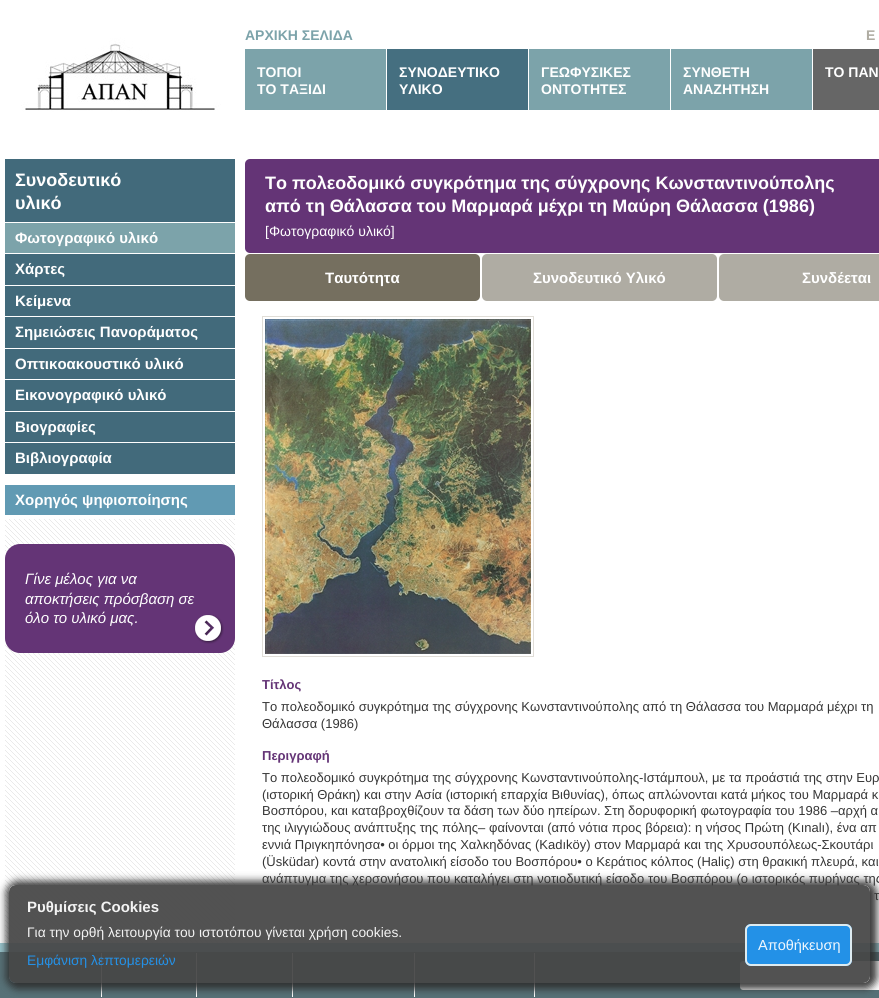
#include <cairo/cairo.h>
#include <math.h>
#include <stddef.h>


static void rounded_rect(cairo_t *cr, double x, double y, double w, double h, double r) {
  cairo_new_sub_path(cr);
  cairo_arc(cr, x + w - r, y + h - r, r, 0, M_PI / 2);
  cairo_arc(cr, x + r, y + h - r, r, M_PI / 2, M_PI);
  cairo_arc(cr, x + r, y + r, r, M_PI, 1.5 * M_PI);
  cairo_arc(cr, x + w - r, y + r, r, 1.5 * M_PI, 2 * M_PI);
  cairo_close_path(cr);
}

static void draw_shadow(cairo_t *cr, double x, double y, double w, double h, double r, double blur, double alpha) {
  cairo_push_group_with_content(cr, CAIRO_CONTENT_ALPHA);
  cairo_set_operator(cr, CAIRO_OPERATOR_SOURCE);
  for (int i = 15; i >= -15 && fmin(w, h) + blur * i / 3 > 0; i -= 2) {
    double e = blur * i / 6;
    cairo_set_source_rgba(cr, 0, 0, 0, alpha * erfc((i - 1) / 8.5) / 2);
    rounded_rect(cr, x - e, y - e, w + 2 * e, h + 2 * e, fmax(0, fmin(r + e + blur * .6, fmin(w, h) / 2 + e)));
    cairo_fill(cr);
  }
  cairo_pattern_t *soft = cairo_pop_group(cr);
  cairo_mask(cr, soft);
  cairo_pattern_destroy(soft);
}

static void draw_image(cairo_t *cr, const char *path, double x, double y, double w, double h) {
  cairo_surface_t *image = cairo_image_surface_create_from_png(path);
  cairo_save(cr);
  cairo_set_source_surface(cr, image, x, y);
  cairo_rectangle(cr, x, y, w, h);
  cairo_fill(cr);
  cairo_restore(cr);
  cairo_surface_destroy(image);
}

static void draw(cairo_t *cr) {
  cairo_set_source_rgb(cr, 1, 1, 1);
  cairo_paint(cr);
  draw_image(cr, "images/1.png", 5, 519, 230, 424);
  draw_image(cr, "images/2.png", 5, 0, 230, 134);
  cairo_set_source_rgb(cr, 102 / 255.0, 102 / 255.0, 102 / 255.0);
  cairo_rectangle(cr, 813, 49, 66, 61);
  cairo_fill(cr);
  cairo_set_source_rgb(cr, 124 / 255.0, 163 / 255.0, 170 / 255.0);
  cairo_rectangle(cr, 245, 49, 141, 61);
  cairo_fill(cr);
  cairo_set_source_rgb(cr, 69 / 255.0, 111 / 255.0, 128 / 255.0);
  cairo_rectangle(cr, 387, 49, 141, 61);
  cairo_fill(cr);
  cairo_set_source_rgb(cr, 124 / 255.0, 163 / 255.0, 170 / 255.0);
  cairo_rectangle(cr, 529, 49, 141, 61);
  cairo_fill(cr);
  cairo_rectangle(cr, 671, 49, 141, 61);
  cairo_fill(cr);
  cairo_set_source_rgb(cr, 66 / 255.0, 106 / 255.0, 123 / 255.0);
  cairo_rectangle(cr, 5, 159, 230, 63);
  cairo_fill(cr);
  cairo_set_source_rgb(cr, 124 / 255.0, 163 / 255.0, 170 / 255.0);
  cairo_rectangle(cr, 5, 223, 230, 30);
  cairo_fill(cr);
  cairo_set_source_rgb(cr, 66 / 255.0, 106 / 255.0, 123 / 255.0);
  cairo_rectangle(cr, 5, 254, 230, 31);
  cairo_fill(cr);
  cairo_rectangle(cr, 5, 286, 230, 30);
  cairo_fill(cr);
  cairo_rectangle(cr, 5, 317, 230, 31);
  cairo_fill(cr);
  cairo_rectangle(cr, 5, 349, 230, 30);
  cairo_fill(cr);
  cairo_rectangle(cr, 5, 380, 230, 31);
  cairo_fill(cr);
  cairo_rectangle(cr, 5, 412, 230, 30);
  cairo_fill(cr);
  cairo_rectangle(cr, 5, 443, 230, 31);
  cairo_fill(cr);
  cairo_set_source_rgb(cr, 97 / 255.0, 154 / 255.0, 179 / 255.0);
  cairo_rectangle(cr, 5, 485, 230, 30);
  cairo_fill(cr);
  cairo_set_source_rgb(cr, 100 / 255.0, 52 / 255.0, 118 / 255.0);
  rounded_rect(cr, 5, 544, 230, 109, 15);
  cairo_fill(cr);
  draw_image(cr, "images/3.png", 194, 614, 30, 30);
  rounded_rect(cr, 245, 159, 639, 94, 5);
  cairo_fill(cr);
  cairo_set_source_rgb(cr, 117 / 255.0, 111 / 255.0, 95 / 255.0);
  rounded_rect(cr, 245, 254, 235, 47, 5);
  cairo_fill(cr);
  cairo_set_source_rgb(cr, 175 / 255.0, 172 / 255.0, 163 / 255.0);
  rounded_rect(cr, 482, 254, 235, 47, 5);
  cairo_fill(cr);
  rounded_rect(cr, 719, 254, 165, 47, 5);
  cairo_fill(cr);
  cairo_rectangle(cr, 262.5, 316.5, 271, 340);
  cairo_set_source_rgb(cr, 224 / 255.0, 221 / 255.0, 215 / 255.0);
  cairo_set_line_width(cr, 1);
  cairo_stroke(cr);
  draw_image(cr, "images/4.png", 265, 319, 266, 335);
  cairo_set_source_rgb(cr, 87 / 255.0, 113 / 255.0, 119 / 255.0);
  cairo_rectangle(cr, 0, 952, 879, 46);
  cairo_fill(cr);
  cairo_set_source_rgb(cr, 153 / 255.0, 198 / 255.0, 206 / 255.0);
  cairo_rectangle(cr, 0, 943, 879, 9);
  cairo_fill(cr);
  cairo_set_source_rgb(cr, 1, 1, 1);
  cairo_rectangle(cr, 101, 953, 1, 44);
  cairo_fill(cr);
  cairo_rectangle(cr, 196, 953, 1, 44);
  cairo_fill(cr);
  cairo_rectangle(cr, 292, 953, 1, 44);
  cairo_fill(cr);
  cairo_rectangle(cr, 414, 953, 1, 44);
  cairo_fill(cr);
  cairo_rectangle(cr, 534, 953, 1, 44);
  cairo_fill(cr);
  cairo_new_path(cr);
  cairo_move_to(cr, 743, 961);
  cairo_line_to(cr, 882, 961);
  cairo_line_to(cr, 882, 990);
  cairo_line_to(cr, 743, 990);
  cairo_curve_to(cr, 741.5, 990, 740, 988.5, 740, 987);
  cairo_line_to(cr, 740, 964);
  cairo_curve_to(cr, 740, 962.5, 741.5, 961, 743, 961);
  cairo_close_path(cr);
  cairo_fill(cr);
  cairo_save(cr);
  cairo_set_fill_rule(cr, CAIRO_FILL_RULE_EVEN_ODD);
  cairo_new_path(cr);
  cairo_move_to(cr, 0, 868);
  cairo_line_to(cr, 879, 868);
  cairo_line_to(cr, 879, 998);
  cairo_line_to(cr, 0, 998);
  cairo_close_path(cr);
  cairo_move_to(cr, 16, 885);
  cairo_line_to(cr, 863, 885);
  cairo_curve_to(cr, 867, 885, 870, 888, 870, 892);
  cairo_line_to(cr, 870, 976);
  cairo_curve_to(cr, 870, 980, 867, 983, 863, 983);
  cairo_line_to(cr, 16, 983);
  cairo_curve_to(cr, 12, 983, 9, 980, 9, 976);
  cairo_line_to(cr, 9, 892);
  cairo_curve_to(cr, 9, 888, 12, 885, 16, 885);
  cairo_close_path(cr);
  cairo_clip(cr);
  cairo_set_source_rgb(cr, 45 / 255.0, 45 / 255.0, 45 / 255.0);
  draw_shadow(cr, 6, 881, 871, 108, 12, 4, 0.93);
  cairo_restore(cr);
  cairo_select_font_face(cr, "Liberation Sans", CAIRO_FONT_SLANT_NORMAL, CAIRO_FONT_WEIGHT_BOLD);
  cairo_set_font_size(cr, 14);
  cairo_set_source_rgb(cr, 124 / 255.0, 163 / 255.0, 170 / 255.0);
  cairo_move_to(cr, 245, 40);
  cairo_show_text(cr, "ΑΡΧΙΚΗ ΣΕΛΙΔΑ");
  cairo_set_source_rgb(cr, 175 / 255.0, 172 / 255.0, 162 / 255.0);
  cairo_move_to(cr, 866, 40);
  cairo_show_text(cr, "E");
  cairo_set_source_rgb(cr, 1, 1, 1);
  cairo_move_to(cr, 257, 77);
  cairo_show_text(cr, "ΤΟΠΟΙ");
  cairo_move_to(cr, 257, 94);
  cairo_show_text(cr, "ΤΟ ΤΑΞΙΔΙ");
  cairo_move_to(cr, 399, 77);
  cairo_show_text(cr, "ΣΥΝΟΔΕΥΤΙΚΟ");
  cairo_move_to(cr, 399, 94);
  cairo_show_text(cr, "ΥΛΙΚΟ");
  cairo_move_to(cr, 541, 77);
  cairo_show_text(cr, "ΓΕΩΦΥΣΙΚΕΣ");
  cairo_move_to(cr, 541, 94);
  cairo_show_text(cr, "ΟΝΤΟΤΗΤΕΣ");
  cairo_move_to(cr, 683, 77);
  cairo_show_text(cr, "ΣΥΝΘΕΤΗ");
  cairo_move_to(cr, 683, 94);
  cairo_show_text(cr, "ΑΝΑΖΗΤΗΣΗ");
  cairo_move_to(cr, 825, 77);
  cairo_show_text(cr, "ΤΟ ΠΑΝ");
  cairo_set_font_size(cr, 18);
  cairo_move_to(cr, 15, 186);
  cairo_show_text(cr, "Συνοδευτικό");
  cairo_move_to(cr, 15, 209);
  cairo_show_text(cr, "υλικό");
  cairo_set_font_size(cr, 15);
  cairo_move_to(cr, 15, 243);
  cairo_show_text(cr, "Φωτογραφικό υλικό");
  cairo_move_to(cr, 15, 274);
  cairo_show_text(cr, "Χάρτες");
  cairo_move_to(cr, 15, 306);
  cairo_show_text(cr, "Κείμενα");
  cairo_move_to(cr, 15, 337);
  cairo_show_text(cr, "Σημειώσεις Πανοράματος");
  cairo_move_to(cr, 15, 369);
  cairo_show_text(cr, "Οπτικοακουστικό υλικό");
  cairo_move_to(cr, 15, 400);
  cairo_show_text(cr, "Εικονογραφικό υλικό");
  cairo_move_to(cr, 15, 432);
  cairo_show_text(cr, "Βιογραφίες");
  cairo_move_to(cr, 15, 463);
  cairo_show_text(cr, "Βιβλιογραφία");
  cairo_move_to(cr, 15, 505);
  cairo_show_text(cr, "Χορηγός ψηφιοποίησης");
  cairo_select_font_face(cr, "Liberation Sans", CAIRO_FONT_SLANT_ITALIC, CAIRO_FONT_WEIGHT_NORMAL);
  cairo_move_to(cr, 25, 584);
  cairo_show_text(cr, "Γίνε μέλος για να");
  cairo_move_to(cr, 25, 604);
  cairo_show_text(cr, "αποκτήσεις πρόσβαση σε");
  cairo_move_to(cr, 25, 623);
  cairo_show_text(cr, "όλο το υλικό μας.");
  cairo_select_font_face(cr, "Liberation Sans", CAIRO_FONT_SLANT_NORMAL, CAIRO_FONT_WEIGHT_BOLD);
  cairo_set_font_size(cr, 18);
  cairo_move_to(cr, 265, 189);
  cairo_show_text(cr, "Το πολεοδομικό συγκρότημα της σύγχρονης Κωνσταντινούπολης");
  cairo_move_to(cr, 265, 212);
  cairo_show_text(cr, "από τη Θάλασσα του Μαρμαρά μέχρι τη Μαύρη Θάλασσα (1986)");
  cairo_select_font_face(cr, "Liberation Sans", CAIRO_FONT_SLANT_NORMAL, CAIRO_FONT_WEIGHT_NORMAL);
  cairo_set_font_size(cr, 14);
  cairo_move_to(cr, 265, 236);
  cairo_show_text(cr, "[Φωτογραφικό υλικό]");
  cairo_select_font_face(cr, "Liberation Sans", CAIRO_FONT_SLANT_NORMAL, CAIRO_FONT_WEIGHT_BOLD);
  cairo_set_font_size(cr, 15);
  cairo_move_to(cr, 325, 283);
  cairo_show_text(cr, "Ταυτότητα");
  cairo_move_to(cr, 533, 283);
  cairo_show_text(cr, "Συνοδευτικό Υλικό");
  cairo_move_to(cr, 802, 283);
  cairo_show_text(cr, "Συνδέεται");
  cairo_set_font_size(cr, 13);
  cairo_set_source_rgb(cr, 100 / 255.0, 52 / 255.0, 118 / 255.0);
  cairo_move_to(cr, 262, 689);
  cairo_show_text(cr, "Τίτλος");
  cairo_select_font_face(cr, "Liberation Sans", CAIRO_FONT_SLANT_NORMAL, CAIRO_FONT_WEIGHT_NORMAL);
  cairo_set_source_rgb(cr, 54 / 255.0, 54 / 255.0, 54 / 255.0);
  cairo_move_to(cr, 262, 711);
  cairo_show_text(cr, "Το πολεοδομικό συγκρότημα της σύγχρονης Κωνσταντινούπολης από τη Θάλασσα του Μαρμαρά μέχρι τη");
  cairo_move_to(cr, 262, 728);
  cairo_show_text(cr, "Θάλασσα (1986)");
  cairo_select_font_face(cr, "Liberation Sans", CAIRO_FONT_SLANT_NORMAL, CAIRO_FONT_WEIGHT_BOLD);
  cairo_set_source_rgb(cr, 100 / 255.0, 52 / 255.0, 118 / 255.0);
  cairo_move_to(cr, 262, 760);
  cairo_show_text(cr, "Περιγραφή");
  cairo_select_font_face(cr, "Liberation Sans", CAIRO_FONT_SLANT_NORMAL, CAIRO_FONT_WEIGHT_NORMAL);
  cairo_set_source_rgb(cr, 54 / 255.0, 54 / 255.0, 54 / 255.0);
  cairo_move_to(cr, 262, 782);
  cairo_show_text(cr, "Το πολεοδομικό συγκρότημα της σύγχρονης Κωνσταντινούπολης-Ιστάμπουλ, με τα προάστιά της στην Ευρ");
  cairo_move_to(cr, 262, 799);
  cairo_show_text(cr, "(ιστορική Θράκη) και στην Ασία (ιστορική επαρχία Βιθυνίας), όπως απλώνονται κατά μήκος του Μαρμαρά κ");
  cairo_move_to(cr, 262, 815);
  cairo_show_text(cr, "Βοσπόρου, και καταβροχθίζουν τα δάση των δύο ηπείρων. Στη δορυφορική φωτογραφία του 1986 –αρχή α");
  cairo_move_to(cr, 262, 832);
  cairo_show_text(cr, "της ιλιγγιώδους ανάπτυξης της πόλης– φαίνονται (από νότια προς βόρεια): η νήσος Πρώτη (Kınalı), ένα απ");
  cairo_move_to(cr, 262, 849);
  cairo_show_text(cr, "εννιά Πριγκηπόνησα• οι όρμοι της Χαλκηδόνας (Kadıköy) στον Μαρμαρά και της Χρυσουπόλεως-Σκουτάρι");
  cairo_move_to(cr, 262, 866);
  cairo_show_text(cr, "(Üsküdar) κοντά στην ανατολική είσοδο του Βοσπόρου• ο Κεράτιος κόλπος (Haliç) στη θρακική πλευρά, και");
  cairo_move_to(cr, 262, 883);
  cairo_show_text(cr, "ανάπτυγμα της χερσονήσου που καταλήγει στη νοτιοδυτική είσοδο του Βοσπόρου (ο ιστορικός πυρήνας της");
  cairo_move_to(cr, 874, 900);
  cairo_show_text(cr, "τ");
  cairo_set_source_rgba(cr, 70 / 255.0, 70 / 255.0, 70 / 255.0, 0.93);
  rounded_rect(cr, 9, 885, 861, 98, 7);
  cairo_fill(cr);
  cairo_select_font_face(cr, "Liberation Sans", CAIRO_FONT_SLANT_NORMAL, CAIRO_FONT_WEIGHT_BOLD);
  cairo_set_font_size(cr, 15);
  cairo_set_source_rgb(cr, 243 / 255.0, 243 / 255.0, 243 / 255.0);
  cairo_move_to(cr, 27, 912);
  cairo_show_text(cr, "Ρυθμίσεις Cookies");
  cairo_select_font_face(cr, "Liberation Sans", CAIRO_FONT_SLANT_NORMAL, CAIRO_FONT_WEIGHT_NORMAL);
  cairo_set_font_size(cr, 13.8);
  cairo_move_to(cr, 27, 937);
  cairo_show_text(cr, "Για την ορθή λειτουργία του ιστοτόπου γίνεται χρήση cookies.");
  cairo_set_source_rgb(cr, 36 / 255.0, 145 / 255.0, 231 / 255.0);
  cairo_move_to(cr, 27, 965);
  cairo_show_text(cr, "Eμφάνιση λεπτομερειών");
  cairo_set_source_rgba(cr, 33 / 255.0, 150 / 255.0, 243 / 255.0, 0.93);
  rounded_rect(cr, 745, 924, 107, 42, 6);
  cairo_fill(cr);
  rounded_rect(cr, 746, 925, 105, 40, 5);
  cairo_set_source_rgba(cr, 235 / 255.0, 241 / 255.0, 242 / 255.0, 0.93);
  cairo_set_line_width(cr, 2);
  cairo_stroke(cr);
  cairo_set_font_size(cr, 14.5);
  cairo_set_source_rgb(cr, 240 / 255.0, 247 / 255.0, 253 / 255.0);
  cairo_move_to(cr, 758, 950);
  cairo_show_text(cr, "Αποθήκευση");
}

int main(void) {
  cairo_surface_t *surface = cairo_image_surface_create(CAIRO_FORMAT_RGB24, 879, 998);
  cairo_t *cr = cairo_create(surface);
  cairo_font_options_t *options = cairo_font_options_create();
  cairo_font_options_set_hint_metrics(options, CAIRO_HINT_METRICS_OFF);
  cairo_font_options_set_hint_style(options, CAIRO_HINT_STYLE_NONE);
  cairo_set_font_options(cr, options);
  cairo_set_miter_limit(cr, 4);
  draw(cr);
  cairo_surface_write_to_png(surface, "out.png");
  cairo_font_options_destroy(options);
  cairo_destroy(cr);
  cairo_surface_destroy(surface);
  return 0;
}
